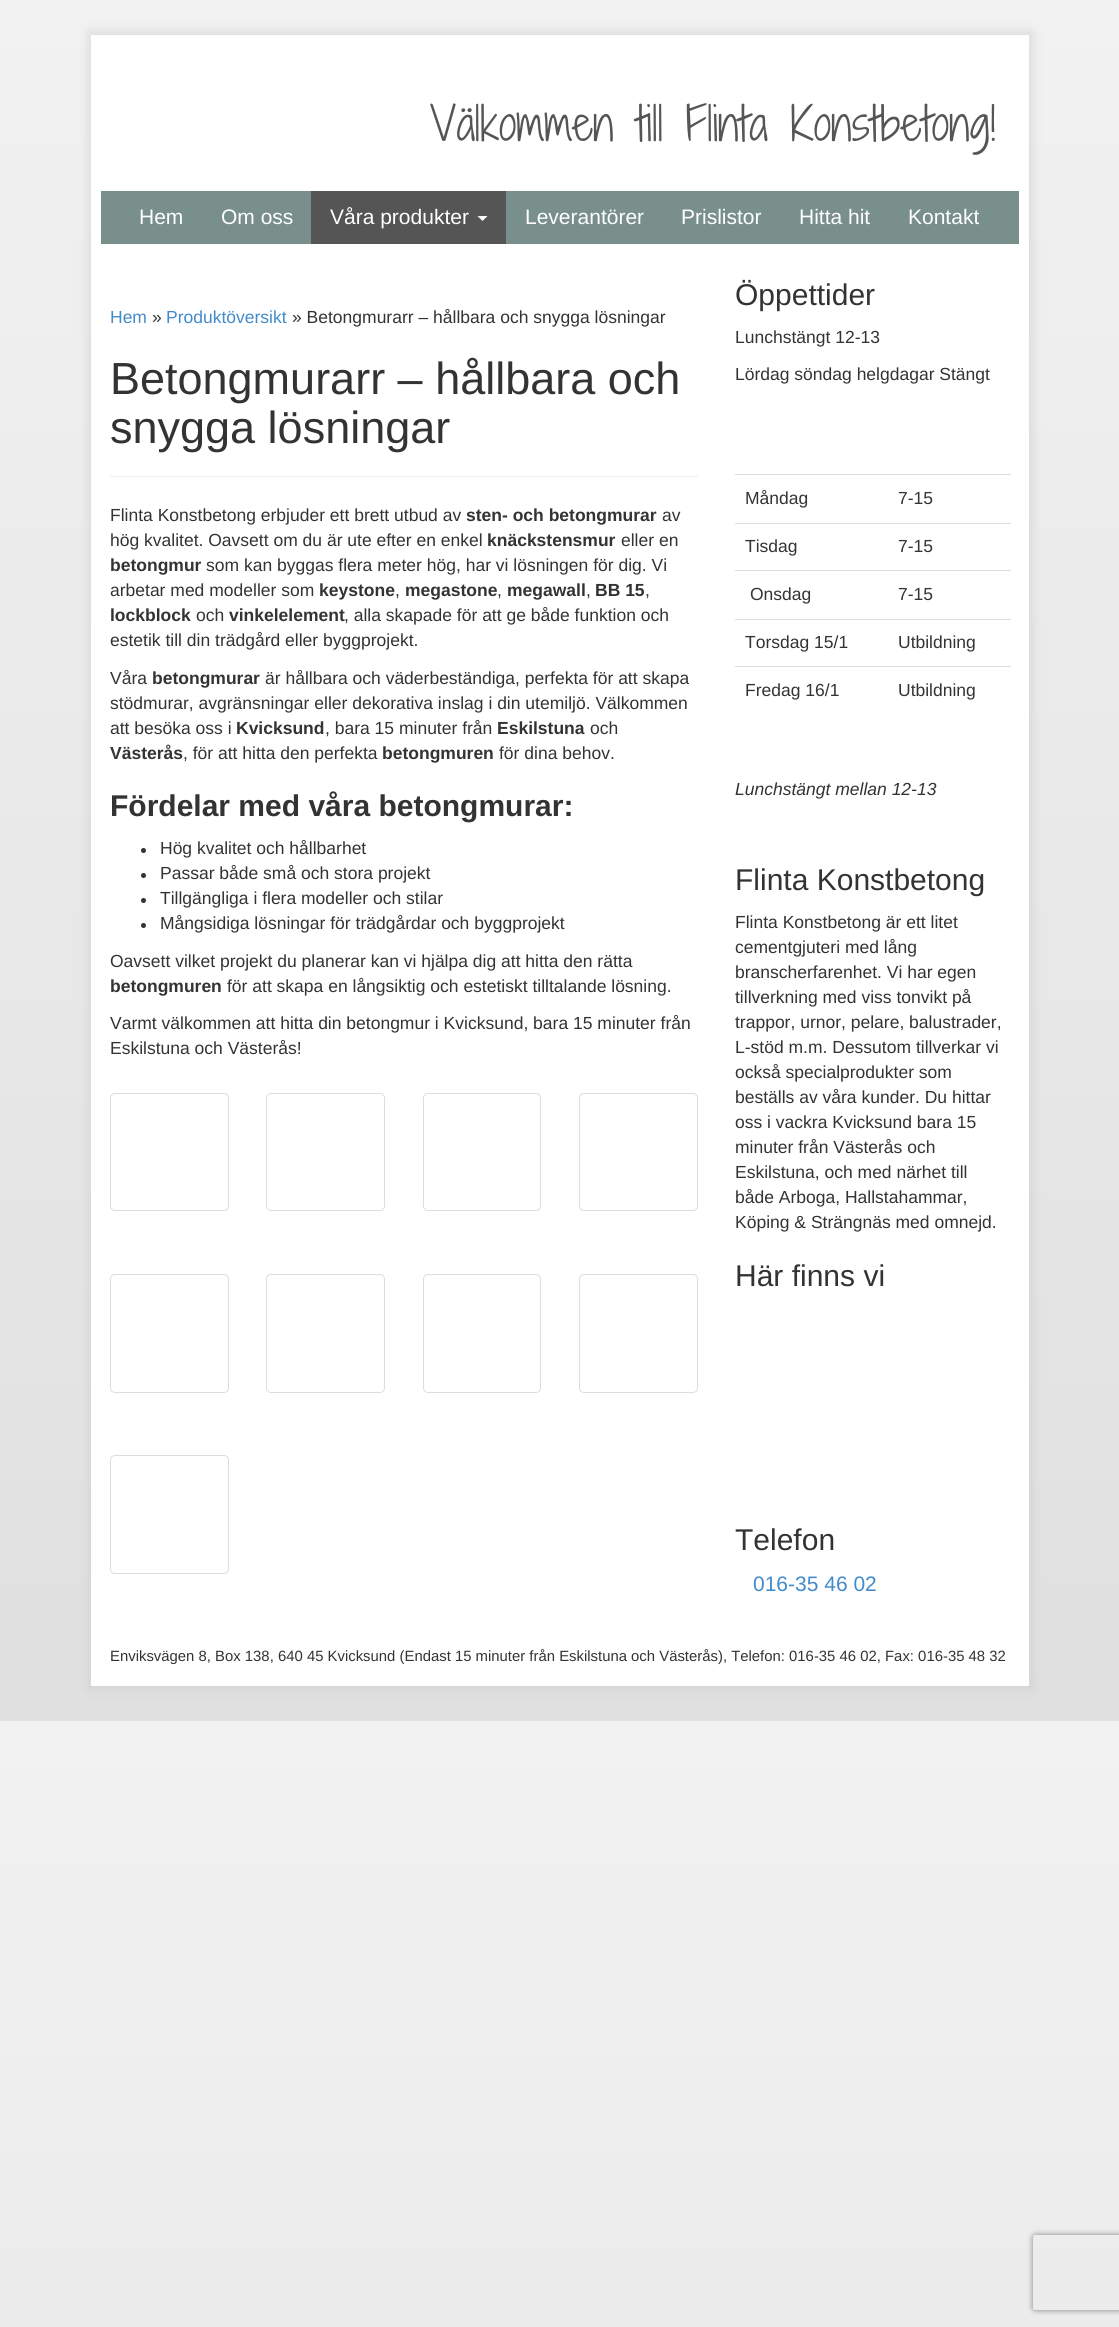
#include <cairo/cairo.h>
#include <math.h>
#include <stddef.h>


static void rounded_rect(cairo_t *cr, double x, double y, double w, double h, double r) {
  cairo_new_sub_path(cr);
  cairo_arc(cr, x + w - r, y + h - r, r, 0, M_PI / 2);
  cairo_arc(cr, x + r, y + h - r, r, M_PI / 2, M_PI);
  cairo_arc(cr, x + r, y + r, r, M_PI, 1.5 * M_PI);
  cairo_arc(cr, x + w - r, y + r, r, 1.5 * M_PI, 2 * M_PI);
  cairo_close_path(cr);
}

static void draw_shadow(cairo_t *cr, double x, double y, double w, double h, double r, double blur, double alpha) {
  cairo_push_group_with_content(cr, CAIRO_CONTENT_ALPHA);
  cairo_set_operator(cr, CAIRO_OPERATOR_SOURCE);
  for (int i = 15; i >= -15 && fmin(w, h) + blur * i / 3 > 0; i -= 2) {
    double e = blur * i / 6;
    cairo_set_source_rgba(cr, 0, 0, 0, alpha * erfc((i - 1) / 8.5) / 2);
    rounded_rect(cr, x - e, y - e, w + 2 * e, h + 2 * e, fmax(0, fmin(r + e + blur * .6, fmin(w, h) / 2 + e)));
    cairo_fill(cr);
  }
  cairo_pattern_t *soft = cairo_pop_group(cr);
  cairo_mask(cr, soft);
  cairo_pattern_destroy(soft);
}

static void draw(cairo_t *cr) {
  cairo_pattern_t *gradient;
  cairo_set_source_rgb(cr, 1, 1, 1);
  cairo_paint(cr);
  gradient = cairo_pattern_create_linear(560, 0, 560, 1721);
  cairo_pattern_add_color_stop_rgba(gradient, 0, 242 / 255.0, 242 / 255.0, 242 / 255.0, 1);
  cairo_pattern_add_color_stop_rgba(gradient, 1, 224 / 255.0, 224 / 255.0, 224 / 255.0, 1);
  cairo_set_source(cr, gradient);
  cairo_pattern_destroy(gradient);
  cairo_rectangle(cr, 0, 0, 1119, 1721);
  cairo_fill(cr);
  gradient = cairo_pattern_create_linear(560, 1721, 560, 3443);
  cairo_pattern_add_color_stop_rgba(gradient, 0, 242 / 255.0, 242 / 255.0, 242 / 255.0, 1);
  cairo_pattern_add_color_stop_rgba(gradient, 1, 224 / 255.0, 224 / 255.0, 224 / 255.0, 1);
  cairo_set_source(cr, gradient);
  cairo_pattern_destroy(gradient);
  cairo_rectangle(cr, 0, 1721, 1119, 606);
  cairo_fill(cr);
  cairo_set_source_rgb(cr, 201 / 255.0, 201 / 255.0, 201 / 255.0);
  draw_shadow(cr, 88, 31, 945, 1659, 0, 5, 0.52);
  cairo_set_source_rgb(cr, 1, 1, 1);
  cairo_rectangle(cr, 91, 35, 938, 146);
  cairo_fill(cr);
  cairo_set_source_rgb(cr, 121 / 255.0, 143 / 255.0, 140 / 255.0);
  cairo_rectangle(cr, 96, 186, 928, 63);
  cairo_fill_preserve(cr);
  cairo_set_source_rgb(cr, 1, 1, 1);
  cairo_set_line_width(cr, 10);
  cairo_stroke(cr);
  cairo_set_source_rgb(cr, 85 / 255.0, 85 / 255.0, 85 / 255.0);
  cairo_rectangle(cr, 311, 191, 195, 53);
  cairo_fill(cr);
  cairo_set_source_rgb(cr, 1, 1, 1);
  cairo_new_path(cr);
  cairo_move_to(cr, 477.5, 216);
  cairo_line_to(cr, 487.5, 216);
  cairo_line_to(cr, 482.5, 221);
  cairo_close_path(cr);
  cairo_fill(cr);
  cairo_rectangle(cr, 91, 254, 938, 1432);
  cairo_fill(cr);
  cairo_set_source_rgb(cr, 238 / 255.0, 238 / 255.0, 238 / 255.0);
  cairo_rectangle(cr, 110, 476, 588, 1);
  cairo_fill(cr);
  cairo_set_source_rgb(cr, 51 / 255.0, 51 / 255.0, 51 / 255.0);
  cairo_arc(cr, 143.5, 850.5, 2.5, 0, 2 * M_PI);
  cairo_fill(cr);
  cairo_arc(cr, 143.5, 875.5, 2.5, 0, 2 * M_PI);
  cairo_fill(cr);
  cairo_arc(cr, 143.5, 900.5, 2.5, 0, 2 * M_PI);
  cairo_fill(cr);
  cairo_arc(cr, 143.5, 925.5, 2.5, 0, 2 * M_PI);
  cairo_fill(cr);
  rounded_rect(cr, 110.5, 1093.5, 118, 117, 4.5);
  cairo_set_source_rgb(cr, 221 / 255.0, 221 / 255.0, 221 / 255.0);
  cairo_set_line_width(cr, 1);
  cairo_stroke(cr);
  rounded_rect(cr, 266.5, 1093.5, 118, 117, 4.5);
  cairo_stroke(cr);
  rounded_rect(cr, 423.5, 1093.5, 117, 117, 4.5);
  cairo_stroke(cr);
  rounded_rect(cr, 579.5, 1093.5, 118, 117, 4.5);
  cairo_stroke(cr);
  rounded_rect(cr, 110.5, 1274.5, 118, 118, 4.5);
  cairo_stroke(cr);
  rounded_rect(cr, 266.5, 1274.5, 118, 118, 4.5);
  cairo_stroke(cr);
  rounded_rect(cr, 423.5, 1274.5, 117, 118, 4.5);
  cairo_stroke(cr);
  rounded_rect(cr, 579.5, 1274.5, 118, 118, 4.5);
  cairo_stroke(cr);
  rounded_rect(cr, 110.5, 1455.5, 118, 118, 4.5);
  cairo_stroke(cr);
  cairo_rectangle(cr, 735, 474, 276, 1);
  cairo_fill(cr);
  cairo_rectangle(cr, 735, 523, 276, 1);
  cairo_fill(cr);
  cairo_rectangle(cr, 735, 570, 276, 1);
  cairo_fill(cr);
  cairo_rectangle(cr, 735, 619, 276, 1);
  cairo_fill(cr);
  cairo_rectangle(cr, 735, 666, 276, 1);
  cairo_fill(cr);
  cairo_save(cr);
  cairo_set_fill_rule(cr, CAIRO_FILL_RULE_EVEN_ODD);
  cairo_new_path(cr);
  cairo_move_to(cr, 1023, 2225);
  cairo_line_to(cr, 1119, 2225);
  cairo_line_to(cr, 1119, 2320);
  cairo_line_to(cr, 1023, 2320);
  cairo_close_path(cr);
  cairo_move_to(cr, 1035.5, 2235);
  cairo_line_to(cr, 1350.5, 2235);
  cairo_curve_to(cr, 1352, 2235, 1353, 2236, 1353, 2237.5);
  cairo_line_to(cr, 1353, 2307.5);
  cairo_curve_to(cr, 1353, 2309, 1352, 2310, 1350.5, 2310);
  cairo_line_to(cr, 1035.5, 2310);
  cairo_curve_to(cr, 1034, 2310, 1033, 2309, 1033, 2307.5);
  cairo_line_to(cr, 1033, 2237.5);
  cairo_curve_to(cr, 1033, 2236, 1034, 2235, 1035.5, 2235);
  cairo_close_path(cr);
  cairo_clip(cr);
  cairo_set_source_rgb(cr, 128 / 255.0, 128 / 255.0, 128 / 255.0);
  draw_shadow(cr, 1033, 2235, 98, 75, 2.5, 3, 1);
  cairo_restore(cr);
  cairo_select_font_face(cr, "Shadows Into Light Two Light", CAIRO_FONT_SLANT_NORMAL, CAIRO_FONT_WEIGHT_NORMAL);
  cairo_set_font_size(cr, 45);
  cairo_set_source_rgb(cr, 85 / 255.0, 85 / 255.0, 85 / 255.0);
  cairo_move_to(cr, 430, 141);
  cairo_show_text(cr, "Välkommen till Flinta Konstbetong!");
  cairo_select_font_face(cr, "Liberation Sans", CAIRO_FONT_SLANT_NORMAL, CAIRO_FONT_WEIGHT_NORMAL);
  cairo_set_font_size(cr, 21);
  cairo_set_source_rgb(cr, 1, 1, 1);
  cairo_move_to(cr, 139, 224);
  cairo_show_text(cr, "Hem");
  cairo_move_to(cr, 221, 224);
  cairo_show_text(cr, "Om oss");
  cairo_move_to(cr, 330, 224);
  cairo_show_text(cr, "Våra produkter");
  cairo_move_to(cr, 525, 224);
  cairo_show_text(cr, "Leverantörer");
  cairo_move_to(cr, 681, 224);
  cairo_show_text(cr, "Prislistor");
  cairo_move_to(cr, 799, 224);
  cairo_show_text(cr, "Hitta hit");
  cairo_move_to(cr, 908, 224);
  cairo_show_text(cr, "Kontakt");
  cairo_set_font_size(cr, 17.5);
  cairo_set_source_rgb(cr, 66 / 255.0, 139 / 255.0, 202 / 255.0);
  cairo_move_to(cr, 110, 323);
  cairo_show_text(cr, "Hem");
  cairo_set_source_rgb(cr, 51 / 255.0, 51 / 255.0, 51 / 255.0);
  cairo_move_to(cr, 152, 323);
  cairo_show_text(cr, "»");
  cairo_set_source_rgb(cr, 66 / 255.0, 139 / 255.0, 202 / 255.0);
  cairo_move_to(cr, 166, 323);
  cairo_show_text(cr, "Produktöversikt");
  cairo_set_source_rgb(cr, 51 / 255.0, 51 / 255.0, 51 / 255.0);
  cairo_move_to(cr, 292, 323);
  cairo_show_text(cr, "» Betongmurarr – hållbara och snygga lösningar");
  cairo_set_font_size(cr, 45);
  cairo_move_to(cr, 110, 394);
  cairo_show_text(cr, "Betongmurarr – hållbara och");
  cairo_move_to(cr, 110, 443);
  cairo_show_text(cr, "snygga lösningar");
  cairo_set_font_size(cr, 17.5);
  cairo_move_to(cr, 110, 521);
  cairo_show_text(cr, "Flinta Konstbetong erbjuder ett brett utbud av");
  cairo_select_font_face(cr, "Liberation Sans", CAIRO_FONT_SLANT_NORMAL, CAIRO_FONT_WEIGHT_BOLD);
  cairo_move_to(cr, 466, 521);
  cairo_show_text(cr, "sten- och betongmurar");
  cairo_select_font_face(cr, "Liberation Sans", CAIRO_FONT_SLANT_NORMAL, CAIRO_FONT_WEIGHT_NORMAL);
  cairo_move_to(cr, 662, 521);
  cairo_show_text(cr, "av");
  cairo_move_to(cr, 110, 546);
  cairo_show_text(cr, "hög kvalitet. Oavsett om du är ute efter en enkel");
  cairo_select_font_face(cr, "Liberation Sans", CAIRO_FONT_SLANT_NORMAL, CAIRO_FONT_WEIGHT_BOLD);
  cairo_move_to(cr, 487, 546);
  cairo_show_text(cr, "knäckstensmur");
  cairo_select_font_face(cr, "Liberation Sans", CAIRO_FONT_SLANT_NORMAL, CAIRO_FONT_WEIGHT_NORMAL);
  cairo_move_to(cr, 621, 546);
  cairo_show_text(cr, "eller en");
  cairo_select_font_face(cr, "Liberation Sans", CAIRO_FONT_SLANT_NORMAL, CAIRO_FONT_WEIGHT_BOLD);
  cairo_move_to(cr, 110, 571);
  cairo_show_text(cr, "betongmur");
  cairo_select_font_face(cr, "Liberation Sans", CAIRO_FONT_SLANT_NORMAL, CAIRO_FONT_WEIGHT_NORMAL);
  cairo_move_to(cr, 206, 571);
  cairo_show_text(cr, "som kan byggas flera meter hög, har vi lösningen för dig. Vi");
  cairo_move_to(cr, 110, 596);
  cairo_show_text(cr, "arbetar med modeller som");
  cairo_select_font_face(cr, "Liberation Sans", CAIRO_FONT_SLANT_NORMAL, CAIRO_FONT_WEIGHT_BOLD);
  cairo_move_to(cr, 319, 596);
  cairo_show_text(cr, "keystone");
  cairo_select_font_face(cr, "Liberation Sans", CAIRO_FONT_SLANT_NORMAL, CAIRO_FONT_WEIGHT_NORMAL);
  cairo_move_to(cr, 395, 596);
  cairo_show_text(cr, ",");
  cairo_select_font_face(cr, "Liberation Sans", CAIRO_FONT_SLANT_NORMAL, CAIRO_FONT_WEIGHT_BOLD);
  cairo_move_to(cr, 405, 596);
  cairo_show_text(cr, "megastone");
  cairo_select_font_face(cr, "Liberation Sans", CAIRO_FONT_SLANT_NORMAL, CAIRO_FONT_WEIGHT_NORMAL);
  cairo_move_to(cr, 497, 596);
  cairo_show_text(cr, ",");
  cairo_select_font_face(cr, "Liberation Sans", CAIRO_FONT_SLANT_NORMAL, CAIRO_FONT_WEIGHT_BOLD);
  cairo_move_to(cr, 507, 596);
  cairo_show_text(cr, "megawall");
  cairo_select_font_face(cr, "Liberation Sans", CAIRO_FONT_SLANT_NORMAL, CAIRO_FONT_WEIGHT_NORMAL);
  cairo_move_to(cr, 586, 596);
  cairo_show_text(cr, ",");
  cairo_select_font_face(cr, "Liberation Sans", CAIRO_FONT_SLANT_NORMAL, CAIRO_FONT_WEIGHT_BOLD);
  cairo_move_to(cr, 595, 596);
  cairo_show_text(cr, "BB 15");
  cairo_select_font_face(cr, "Liberation Sans", CAIRO_FONT_SLANT_NORMAL, CAIRO_FONT_WEIGHT_NORMAL);
  cairo_move_to(cr, 645, 596);
  cairo_show_text(cr, ",");
  cairo_select_font_face(cr, "Liberation Sans", CAIRO_FONT_SLANT_NORMAL, CAIRO_FONT_WEIGHT_BOLD);
  cairo_move_to(cr, 110, 621);
  cairo_show_text(cr, "lockblock");
  cairo_select_font_face(cr, "Liberation Sans", CAIRO_FONT_SLANT_NORMAL, CAIRO_FONT_WEIGHT_NORMAL);
  cairo_move_to(cr, 196, 621);
  cairo_show_text(cr, "och");
  cairo_select_font_face(cr, "Liberation Sans", CAIRO_FONT_SLANT_NORMAL, CAIRO_FONT_WEIGHT_BOLD);
  cairo_move_to(cr, 229, 621);
  cairo_show_text(cr, "vinkelelement");
  cairo_select_font_face(cr, "Liberation Sans", CAIRO_FONT_SLANT_NORMAL, CAIRO_FONT_WEIGHT_NORMAL);
  cairo_move_to(cr, 344, 621);
  cairo_show_text(cr, ", alla skapade för att ge både funktion och");
  cairo_move_to(cr, 110, 646);
  cairo_show_text(cr, "estetik till din trädgård eller byggprojekt.");
  cairo_move_to(cr, 110, 684);
  cairo_show_text(cr, "Våra");
  cairo_select_font_face(cr, "Liberation Sans", CAIRO_FONT_SLANT_NORMAL, CAIRO_FONT_WEIGHT_BOLD);
  cairo_move_to(cr, 152, 684);
  cairo_show_text(cr, "betongmurar");
  cairo_select_font_face(cr, "Liberation Sans", CAIRO_FONT_SLANT_NORMAL, CAIRO_FONT_WEIGHT_NORMAL);
  cairo_move_to(cr, 265, 684);
  cairo_show_text(cr, "är hållbara och väderbeständiga, perfekta för att skapa");
  cairo_move_to(cr, 110, 709);
  cairo_show_text(cr, "stödmurar, avgränsningar eller dekorativa inslag i din utemiljö. Välkommen");
  cairo_move_to(cr, 110, 734);
  cairo_show_text(cr, "att besöka oss i");
  cairo_select_font_face(cr, "Liberation Sans", CAIRO_FONT_SLANT_NORMAL, CAIRO_FONT_WEIGHT_BOLD);
  cairo_move_to(cr, 236, 734);
  cairo_show_text(cr, "Kvicksund");
  cairo_select_font_face(cr, "Liberation Sans", CAIRO_FONT_SLANT_NORMAL, CAIRO_FONT_WEIGHT_NORMAL);
  cairo_move_to(cr, 325, 734);
  cairo_show_text(cr, ", bara 15 minuter från");
  cairo_select_font_face(cr, "Liberation Sans", CAIRO_FONT_SLANT_NORMAL, CAIRO_FONT_WEIGHT_BOLD);
  cairo_move_to(cr, 497, 734);
  cairo_show_text(cr, "Eskilstuna");
  cairo_select_font_face(cr, "Liberation Sans", CAIRO_FONT_SLANT_NORMAL, CAIRO_FONT_WEIGHT_NORMAL);
  cairo_move_to(cr, 590, 734);
  cairo_show_text(cr, "och");
  cairo_select_font_face(cr, "Liberation Sans", CAIRO_FONT_SLANT_NORMAL, CAIRO_FONT_WEIGHT_BOLD);
  cairo_move_to(cr, 110, 759);
  cairo_show_text(cr, "Västerås");
  cairo_select_font_face(cr, "Liberation Sans", CAIRO_FONT_SLANT_NORMAL, CAIRO_FONT_WEIGHT_NORMAL);
  cairo_move_to(cr, 183, 759);
  cairo_show_text(cr, ", för att hitta den perfekta");
  cairo_select_font_face(cr, "Liberation Sans", CAIRO_FONT_SLANT_NORMAL, CAIRO_FONT_WEIGHT_BOLD);
  cairo_move_to(cr, 382, 759);
  cairo_show_text(cr, "betongmuren");
  cairo_select_font_face(cr, "Liberation Sans", CAIRO_FONT_SLANT_NORMAL, CAIRO_FONT_WEIGHT_NORMAL);
  cairo_move_to(cr, 499, 759);
  cairo_show_text(cr, "för dina behov.");
  cairo_select_font_face(cr, "Liberation Sans", CAIRO_FONT_SLANT_NORMAL, CAIRO_FONT_WEIGHT_BOLD);
  cairo_set_font_size(cr, 30);
  cairo_move_to(cr, 110, 816);
  cairo_show_text(cr, "Fördelar med våra betongmurar:");
  cairo_select_font_face(cr, "Liberation Sans", CAIRO_FONT_SLANT_NORMAL, CAIRO_FONT_WEIGHT_NORMAL);
  cairo_set_font_size(cr, 17.5);
  cairo_move_to(cr, 160, 854);
  cairo_show_text(cr, "Hög kvalitet och hållbarhet");
  cairo_move_to(cr, 160, 879);
  cairo_show_text(cr, "Passar både små och stora projekt");
  cairo_move_to(cr, 160, 904);
  cairo_show_text(cr, "Tillgängliga i flera modeller och stilar");
  cairo_move_to(cr, 160, 929);
  cairo_show_text(cr, "Mångsidiga lösningar för trädgårdar och byggprojekt");
  cairo_move_to(cr, 110, 967);
  cairo_show_text(cr, "Oavsett vilket projekt du planerar kan vi hjälpa dig att hitta den rätta");
  cairo_select_font_face(cr, "Liberation Sans", CAIRO_FONT_SLANT_NORMAL, CAIRO_FONT_WEIGHT_BOLD);
  cairo_move_to(cr, 110, 992);
  cairo_show_text(cr, "betongmuren");
  cairo_select_font_face(cr, "Liberation Sans", CAIRO_FONT_SLANT_NORMAL, CAIRO_FONT_WEIGHT_NORMAL);
  cairo_move_to(cr, 227, 992);
  cairo_show_text(cr, "för att skapa en långsiktig och estetiskt tilltalande lösning.");
  cairo_move_to(cr, 110, 1029);
  cairo_show_text(cr, "Varmt välkommen att hitta din betongmur i Kvicksund, bara 15 minuter från");
  cairo_move_to(cr, 110, 1054);
  cairo_show_text(cr, "Eskilstuna och Västerås!");
  cairo_set_font_size(cr, 30);
  cairo_move_to(cr, 735, 305);
  cairo_show_text(cr, "Öppettider");
  cairo_set_font_size(cr, 17.5);
  cairo_move_to(cr, 735, 343);
  cairo_show_text(cr, "Lunchstängt 12-13");
  cairo_move_to(cr, 735, 380);
  cairo_show_text(cr, "Lördag söndag helgdagar Stängt");
  cairo_move_to(cr, 745, 504);
  cairo_show_text(cr, "Måndag");
  cairo_move_to(cr, 898, 504);
  cairo_show_text(cr, "7-15");
  cairo_move_to(cr, 745, 552);
  cairo_show_text(cr, "Tisdag");
  cairo_move_to(cr, 898, 552);
  cairo_show_text(cr, "7-15");
  cairo_move_to(cr, 750, 600);
  cairo_show_text(cr, "Onsdag");
  cairo_move_to(cr, 898, 600);
  cairo_show_text(cr, "7-15");
  cairo_move_to(cr, 745, 648);
  cairo_show_text(cr, "Torsdag 15/1");
  cairo_move_to(cr, 898, 648);
  cairo_show_text(cr, "Utbildning");
  cairo_move_to(cr, 745, 696);
  cairo_show_text(cr, "Fredag 16/1");
  cairo_move_to(cr, 898, 696);
  cairo_show_text(cr, "Utbildning");
  cairo_select_font_face(cr, "Liberation Sans", CAIRO_FONT_SLANT_ITALIC, CAIRO_FONT_WEIGHT_NORMAL);
  cairo_move_to(cr, 735, 795);
  cairo_show_text(cr, "Lunchstängt mellan 12-13");
  cairo_select_font_face(cr, "Liberation Sans", CAIRO_FONT_SLANT_NORMAL, CAIRO_FONT_WEIGHT_NORMAL);
  cairo_set_font_size(cr, 30);
  cairo_move_to(cr, 735, 890);
  cairo_show_text(cr, "Flinta Konstbetong");
  cairo_set_font_size(cr, 17.5);
  cairo_move_to(cr, 735, 928);
  cairo_show_text(cr, "Flinta Konstbetong är ett litet");
  cairo_move_to(cr, 735, 953);
  cairo_show_text(cr, "cementgjuteri med lång");
  cairo_move_to(cr, 735, 978);
  cairo_show_text(cr, "branscherfarenhet. Vi har egen");
  cairo_move_to(cr, 735, 1003);
  cairo_show_text(cr, "tillverkning med viss tonvikt på");
  cairo_move_to(cr, 735, 1028);
  cairo_show_text(cr, "trappor, urnor, pelare, balustrader,");
  cairo_move_to(cr, 735, 1053);
  cairo_show_text(cr, "L-stöd m.m. Dessutom tillverkar vi");
  cairo_move_to(cr, 735, 1078);
  cairo_show_text(cr, "också specialprodukter som");
  cairo_move_to(cr, 735, 1103);
  cairo_show_text(cr, "beställs av våra kunder. Du hittar");
  cairo_move_to(cr, 735, 1128);
  cairo_show_text(cr, "oss i vackra Kvicksund bara 15");
  cairo_move_to(cr, 735, 1153);
  cairo_show_text(cr, "minuter från Västerås och");
  cairo_move_to(cr, 735, 1178);
  cairo_show_text(cr, "Eskilstuna, och med närhet till");
  cairo_move_to(cr, 735, 1203);
  cairo_show_text(cr, "både Arboga, Hallstahammar,");
  cairo_move_to(cr, 735, 1228);
  cairo_show_text(cr, "Köping & Strängnäs med omnejd.");
  cairo_set_font_size(cr, 30);
  cairo_move_to(cr, 735, 1286);
  cairo_show_text(cr, "Här finns vi");
  cairo_move_to(cr, 735, 1550);
  cairo_show_text(cr, "Telefon");
  cairo_set_font_size(cr, 21);
  cairo_set_source_rgb(cr, 66 / 255.0, 139 / 255.0, 202 / 255.0);
  cairo_move_to(cr, 753, 1591);
  cairo_show_text(cr, "016-35 46 02");
  cairo_set_font_size(cr, 14.88);
  cairo_set_source_rgb(cr, 51 / 255.0, 51 / 255.0, 51 / 255.0);
  cairo_move_to(cr, 110, 1661);
  cairo_show_text(cr, "Enviksvägen 8, Box 138, 640 45 Kvicksund (Endast 15 minuter från Eskilstuna och Västerås), Telefon: 016-35 46 02, Fax: 016-35 48 32");
}

int main(void) {
  cairo_surface_t *surface = cairo_image_surface_create(CAIRO_FORMAT_RGB24, 1119, 2327);
  cairo_t *cr = cairo_create(surface);
  cairo_font_options_t *options = cairo_font_options_create();
  cairo_font_options_set_hint_metrics(options, CAIRO_HINT_METRICS_OFF);
  cairo_font_options_set_hint_style(options, CAIRO_HINT_STYLE_NONE);
  cairo_set_font_options(cr, options);
  cairo_set_miter_limit(cr, 4);
  draw(cr);
  cairo_surface_write_to_png(surface, "out.png");
  cairo_font_options_destroy(options);
  cairo_destroy(cr);
  cairo_surface_destroy(surface);
  return 0;
}
